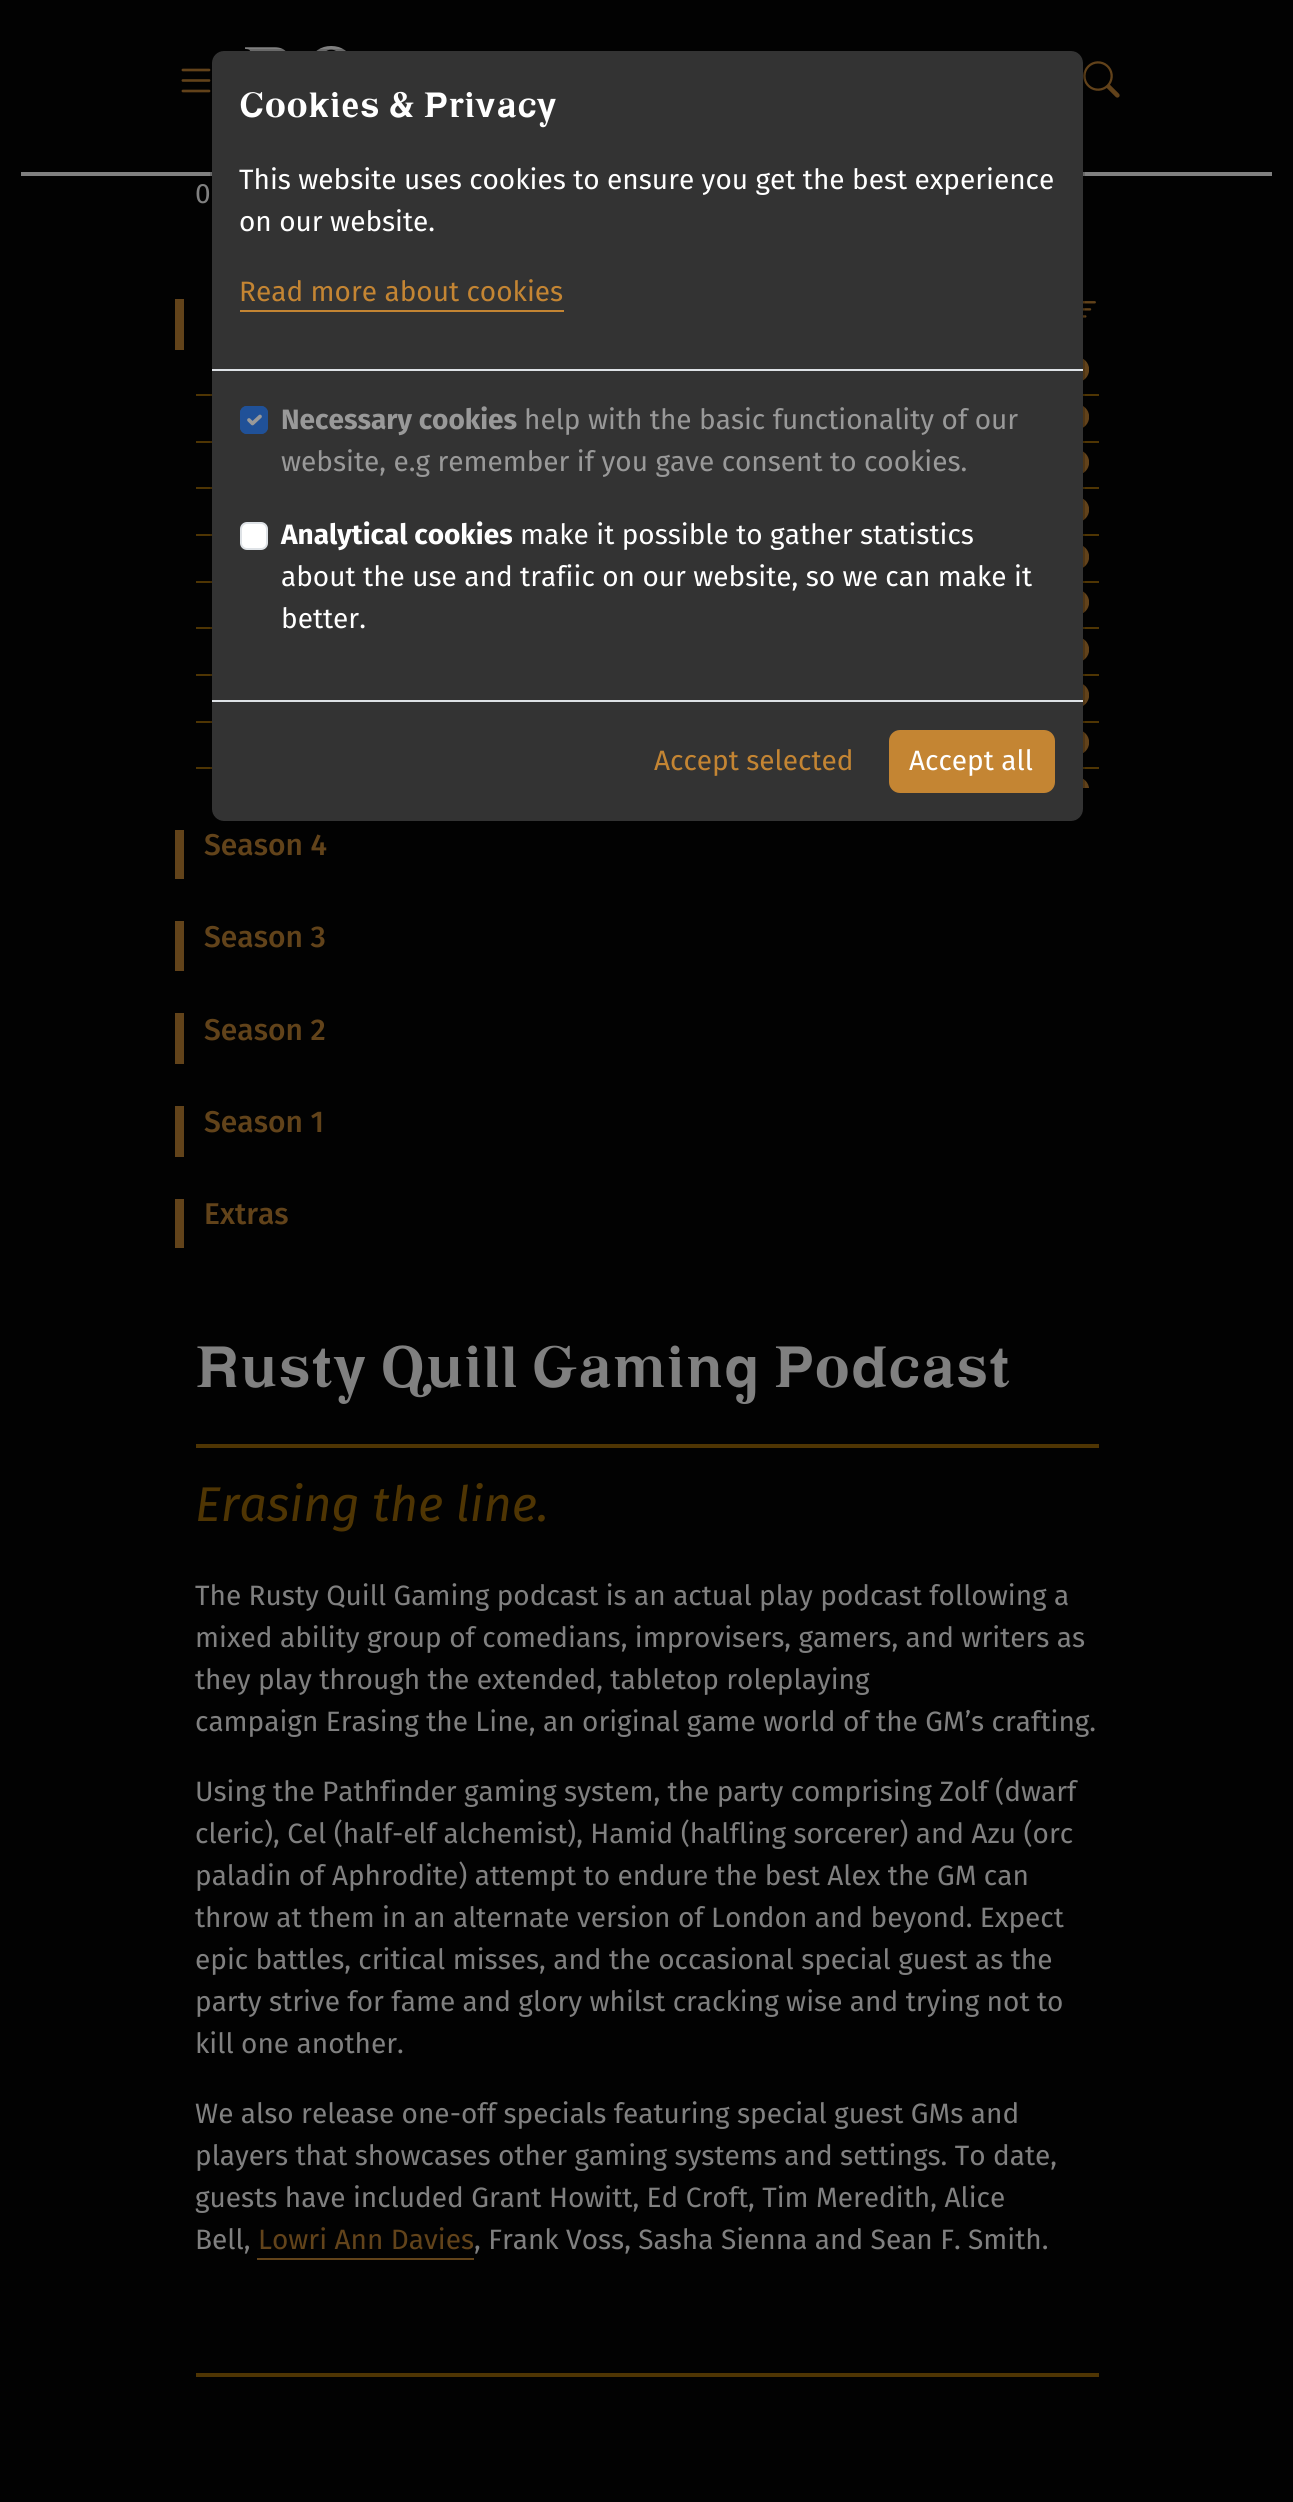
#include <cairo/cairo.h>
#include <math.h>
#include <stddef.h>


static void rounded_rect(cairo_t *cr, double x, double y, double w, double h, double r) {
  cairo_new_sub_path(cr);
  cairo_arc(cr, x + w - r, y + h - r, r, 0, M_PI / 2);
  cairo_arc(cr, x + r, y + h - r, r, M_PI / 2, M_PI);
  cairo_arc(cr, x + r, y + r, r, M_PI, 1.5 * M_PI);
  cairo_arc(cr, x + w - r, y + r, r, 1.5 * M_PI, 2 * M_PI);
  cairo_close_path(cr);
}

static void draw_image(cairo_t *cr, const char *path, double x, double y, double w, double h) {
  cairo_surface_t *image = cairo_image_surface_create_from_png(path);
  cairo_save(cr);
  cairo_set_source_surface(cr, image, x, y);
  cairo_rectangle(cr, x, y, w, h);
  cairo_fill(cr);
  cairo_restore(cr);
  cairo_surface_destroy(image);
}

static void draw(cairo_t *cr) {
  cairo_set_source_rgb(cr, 2 / 255.0, 2 / 255.0, 2 / 255.0);
  cairo_paint(cr);
  cairo_set_source_rgb(cr, 128 / 255.0, 128 / 255.0, 128 / 255.0);
  cairo_rectangle(cr, 21, 172, 1251, 4);
  cairo_fill(cr);
  draw_image(cr, "images/1.png", 245, 46, 101, 5);
  draw_image(cr, "images/2.png", 181, 68, 30, 25);
  draw_image(cr, "images/3.png", 1083, 61, 37, 37);
  cairo_set_source_rgb(cr, 79 / 255.0, 53 / 255.0, 3 / 255.0);
  cairo_rectangle(cr, 196, 394, 903, 2);
  cairo_fill(cr);
  cairo_rectangle(cr, 196, 441, 903, 2);
  cairo_fill(cr);
  cairo_rectangle(cr, 196, 487, 903, 2);
  cairo_fill(cr);
  cairo_rectangle(cr, 196, 534, 903, 2);
  cairo_fill(cr);
  cairo_rectangle(cr, 196, 581, 903, 2);
  cairo_fill(cr);
  cairo_rectangle(cr, 196, 627, 903, 2);
  cairo_fill(cr);
  cairo_rectangle(cr, 196, 674, 903, 2);
  cairo_fill(cr);
  cairo_rectangle(cr, 196, 721, 903, 2);
  cairo_fill(cr);
  cairo_rectangle(cr, 196, 767, 903, 2);
  cairo_fill(cr);
  cairo_set_source_rgb(cr, 51 / 255.0, 51 / 255.0, 51 / 255.0);
  rounded_rect(cr, 212, 51, 871, 770, 12);
  cairo_fill(cr);
  draw_image(cr, "images/4.png", 1083, 301, 13, 17);
  draw_image(cr, "images/5.png", 1083, 358, 6, 23);
  draw_image(cr, "images/6.png", 1083, 406, 6, 22);
  draw_image(cr, "images/7.png", 1083, 451, 6, 22);
  draw_image(cr, "images/5.png", 1083, 498, 6, 23);
  draw_image(cr, "images/6.png", 1083, 546, 6, 22);
  draw_image(cr, "images/7.png", 1083, 591, 6, 22);
  draw_image(cr, "images/5.png", 1083, 638, 6, 23);
  draw_image(cr, "images/8.png", 1083, 684, 6, 22);
  draw_image(cr, "images/7.png", 1083, 731, 6, 22);
  draw_image(cr, "images/9.png", 1083, 778, 6, 10);
  rounded_rect(cr, 211, 50, 873, 772, 13);
  cairo_set_source_rgba(cr, 0, 0, 0, 0.18);
  cairo_stroke(cr);
  cairo_set_source_rgb(cr, 222 / 255.0, 226 / 255.0, 230 / 255.0);
  cairo_rectangle(cr, 212, 369, 871, 2);
  cairo_fill(cr);
  cairo_set_source_rgb(cr, 196 / 255.0, 133 / 255.0, 51 / 255.0);
  cairo_rectangle(cr, 240, 310, 324, 2);
  cairo_fill(cr);
  cairo_set_source_rgb(cr, 32 / 255.0, 81 / 255.0, 152 / 255.0);
  rounded_rect(cr, 240, 406, 28, 28, 7);
  cairo_fill(cr);
  cairo_new_path(cr);
  cairo_move_to(cr, 249, 420);
  cairo_line_to(cr, 252.5, 423.5);
  cairo_line_to(cr, 260, 416.5);
  cairo_set_source_rgb(cr, 153 / 255.0, 153 / 255.0, 153 / 255.0);
  cairo_set_line_width(cr, 3.7);
  cairo_set_line_cap(cr, CAIRO_LINE_CAP_ROUND);
  cairo_set_line_join(cr, CAIRO_LINE_JOIN_ROUND);
  cairo_stroke(cr);
  rounded_rect(cr, 241, 407, 26, 26, 6);
  cairo_set_source_rgb(cr, 32 / 255.0, 81 / 255.0, 152 / 255.0);
  cairo_set_line_width(cr, 2);
  cairo_set_line_cap(cr, CAIRO_LINE_CAP_BUTT);
  cairo_set_line_join(cr, CAIRO_LINE_JOIN_MITER);
  cairo_stroke(cr);
  cairo_set_source_rgb(cr, 1, 1, 1);
  rounded_rect(cr, 241, 523, 26, 26, 6);
  cairo_fill_preserve(cr);
  cairo_set_source_rgb(cr, 222 / 255.0, 226 / 255.0, 230 / 255.0);
  cairo_stroke(cr);
  cairo_rectangle(cr, 212, 700, 871, 2);
  cairo_fill(cr);
  cairo_set_source_rgb(cr, 196 / 255.0, 133 / 255.0, 51 / 255.0);
  rounded_rect(cr, 889, 730, 166, 63, 11);
  cairo_fill(cr);
  cairo_set_source_rgb(cr, 98 / 255.0, 67 / 255.0, 26 / 255.0);
  cairo_rectangle(cr, 175, 299, 9, 51);
  cairo_fill(cr);
  cairo_rectangle(cr, 175, 830, 9, 49);
  cairo_fill(cr);
  cairo_rectangle(cr, 175, 921, 9, 50);
  cairo_fill(cr);
  cairo_rectangle(cr, 175, 1013, 9, 51);
  cairo_fill(cr);
  cairo_rectangle(cr, 175, 1106, 9, 51);
  cairo_fill(cr);
  cairo_rectangle(cr, 175, 1199, 9, 49);
  cairo_fill(cr);
  cairo_set_source_rgb(cr, 79 / 255.0, 53 / 255.0, 3 / 255.0);
  cairo_rectangle(cr, 196, 1444, 903, 4);
  cairo_fill(cr);
  cairo_set_source_rgb(cr, 98 / 255.0, 67 / 255.0, 26 / 255.0);
  cairo_rectangle(cr, 257, 2258, 217, 2);
  cairo_fill(cr);
  cairo_set_source_rgb(cr, 79 / 255.0, 53 / 255.0, 3 / 255.0);
  cairo_rectangle(cr, 196, 2373, 903, 4);
  cairo_fill(cr);
  cairo_select_font_face(cr, "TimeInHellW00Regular", CAIRO_FONT_SLANT_NORMAL, CAIRO_FONT_WEIGHT_NORMAL);
  cairo_set_font_size(cr, 35);
  cairo_set_source_rgb(cr, 1, 1, 1);
  cairo_move_to(cr, 239, 117);
  cairo_show_text(cr, "Cookies & Privacy");
  cairo_select_font_face(cr, "Fira Sans", CAIRO_FONT_SLANT_NORMAL, CAIRO_FONT_WEIGHT_NORMAL);
  cairo_set_font_size(cr, 28);
  cairo_move_to(cr, 239, 189);
  cairo_show_text(cr, "This website uses cookies to ensure you get the best experience");
  cairo_move_to(cr, 239, 231);
  cairo_show_text(cr, "on our website.");
  cairo_set_source_rgb(cr, 196 / 255.0, 133 / 255.0, 51 / 255.0);
  cairo_move_to(cr, 239, 301);
  cairo_show_text(cr, "Read more about cookies");
  cairo_select_font_face(cr, "Fira Sans", CAIRO_FONT_SLANT_NORMAL, CAIRO_FONT_WEIGHT_BOLD);
  cairo_set_source_rgb(cr, 153 / 255.0, 153 / 255.0, 153 / 255.0);
  cairo_move_to(cr, 281, 429);
  cairo_show_text(cr, "Necessary cookies");
  cairo_select_font_face(cr, "Fira Sans", CAIRO_FONT_SLANT_NORMAL, CAIRO_FONT_WEIGHT_NORMAL);
  cairo_move_to(cr, 524, 429);
  cairo_show_text(cr, "help with the basic functionality of our");
  cairo_move_to(cr, 281, 471);
  cairo_show_text(cr, "website, e.g remember if you gave consent to cookies.");
  cairo_select_font_face(cr, "Fira Sans", CAIRO_FONT_SLANT_NORMAL, CAIRO_FONT_WEIGHT_BOLD);
  cairo_set_source_rgb(cr, 1, 1, 1);
  cairo_move_to(cr, 281, 544);
  cairo_show_text(cr, "Analytical cookies");
  cairo_select_font_face(cr, "Fira Sans", CAIRO_FONT_SLANT_NORMAL, CAIRO_FONT_WEIGHT_NORMAL);
  cairo_move_to(cr, 520, 544);
  cairo_show_text(cr, "make it possible to gather statistics");
  cairo_move_to(cr, 281, 586);
  cairo_show_text(cr, "about the use and trafiic on our website, so we can make it");
  cairo_move_to(cr, 281, 628);
  cairo_show_text(cr, "better.");
  cairo_set_source_rgb(cr, 196 / 255.0, 133 / 255.0, 51 / 255.0);
  cairo_move_to(cr, 654, 770);
  cairo_show_text(cr, "Accept selected");
  cairo_set_source_rgb(cr, 1, 1, 1);
  cairo_move_to(cr, 909, 770);
  cairo_show_text(cr, "Accept all");
  cairo_set_source_rgb(cr, 128 / 255.0, 128 / 255.0, 128 / 255.0);
  cairo_move_to(cr, 195, 203);
  cairo_show_text(cr, "0");
  cairo_select_font_face(cr, "Fira Sans Medium", CAIRO_FONT_SLANT_NORMAL, CAIRO_FONT_WEIGHT_NORMAL);
  cairo_set_font_size(cr, 30);
  cairo_set_source_rgb(cr, 98 / 255.0, 67 / 255.0, 26 / 255.0);
  cairo_move_to(cr, 204, 855);
  cairo_show_text(cr, "Season 4");
  cairo_move_to(cr, 204, 947);
  cairo_show_text(cr, "Season 3");
  cairo_move_to(cr, 204, 1040);
  cairo_show_text(cr, "Season 2");
  cairo_move_to(cr, 204, 1132);
  cairo_show_text(cr, "Season 1");
  cairo_move_to(cr, 204, 1224);
  cairo_show_text(cr, "Extras");
  cairo_select_font_face(cr, "TimeInHellW00Regular", CAIRO_FONT_SLANT_NORMAL, CAIRO_FONT_WEIGHT_NORMAL);
  cairo_set_font_size(cr, 57.9);
  cairo_set_source_rgb(cr, 128 / 255.0, 128 / 255.0, 128 / 255.0);
  cairo_move_to(cr, 195, 1387);
  cairo_show_text(cr, "Rusty Quill Gaming Podcast");
  cairo_select_font_face(cr, "Fira Sans", CAIRO_FONT_SLANT_ITALIC, CAIRO_FONT_WEIGHT_NORMAL);
  cairo_set_font_size(cr, 48.75);
  cairo_set_source_rgb(cr, 79 / 255.0, 53 / 255.0, 3 / 255.0);
  cairo_move_to(cr, 195, 1521);
  cairo_show_text(cr, "Erasing the line.");
  cairo_select_font_face(cr, "Fira Sans", CAIRO_FONT_SLANT_NORMAL, CAIRO_FONT_WEIGHT_NORMAL);
  cairo_set_font_size(cr, 28);
  cairo_set_source_rgb(cr, 128 / 255.0, 128 / 255.0, 128 / 255.0);
  cairo_move_to(cr, 195, 1605);
  cairo_show_text(cr, "The Rusty Quill Gaming podcast is an actual play podcast following a");
  cairo_move_to(cr, 195, 1647);
  cairo_show_text(cr, "mixed ability group of comedians, improvisers, gamers, and writers as");
  cairo_move_to(cr, 195, 1689);
  cairo_show_text(cr, "they play through the extended, tabletop roleplaying");
  cairo_move_to(cr, 195, 1731);
  cairo_show_text(cr, "campaign Erasing the Line, an original game world of the GM’s crafting.");
  cairo_move_to(cr, 195, 1801);
  cairo_show_text(cr, "Using the Pathfinder gaming system, the party comprising Zolf (dwarf");
  cairo_move_to(cr, 195, 1843);
  cairo_show_text(cr, "cleric), Cel (half-elf alchemist), Hamid (halfling sorcerer) and Azu (orc");
  cairo_move_to(cr, 195, 1885);
  cairo_show_text(cr, "paladin of Aphrodite) attempt to endure the best Alex the GM can");
  cairo_move_to(cr, 195, 1927);
  cairo_show_text(cr, "throw at them in an alternate version of London and beyond. Expect");
  cairo_move_to(cr, 195, 1969);
  cairo_show_text(cr, "epic battles, critical misses, and the occasional special guest as the");
  cairo_move_to(cr, 195, 2011);
  cairo_show_text(cr, "party strive for fame and glory whilst cracking wise and trying not to");
  cairo_move_to(cr, 195, 2053);
  cairo_show_text(cr, "kill one another.");
  cairo_move_to(cr, 195, 2123);
  cairo_show_text(cr, "We also release one-off specials featuring special guest GMs and");
  cairo_move_to(cr, 195, 2165);
  cairo_show_text(cr, "players that showcases other gaming systems and settings. To date,");
  cairo_move_to(cr, 195, 2207);
  cairo_show_text(cr, "guests have included Grant Howitt, Ed Croft, Tim Meredith, Alice");
  cairo_move_to(cr, 195, 2249);
  cairo_show_text(cr, "Bell,");
  cairo_set_source_rgb(cr, 98 / 255.0, 67 / 255.0, 26 / 255.0);
  cairo_move_to(cr, 258, 2249);
  cairo_show_text(cr, "Lowri Ann Davies");
  cairo_set_source_rgb(cr, 128 / 255.0, 128 / 255.0, 128 / 255.0);
  cairo_move_to(cr, 474, 2249);
  cairo_show_text(cr, ", Frank Voss, Sasha Sienna and Sean F. Smith.");
}

int main(void) {
  cairo_surface_t *surface = cairo_image_surface_create(CAIRO_FORMAT_RGB24, 1293, 2502);
  cairo_t *cr = cairo_create(surface);
  cairo_font_options_t *options = cairo_font_options_create();
  cairo_font_options_set_hint_metrics(options, CAIRO_HINT_METRICS_OFF);
  cairo_font_options_set_hint_style(options, CAIRO_HINT_STYLE_NONE);
  cairo_set_font_options(cr, options);
  cairo_set_miter_limit(cr, 4);
  draw(cr);
  cairo_surface_write_to_png(surface, "out.png");
  cairo_font_options_destroy(options);
  cairo_destroy(cr);
  cairo_surface_destroy(surface);
  return 0;
}
